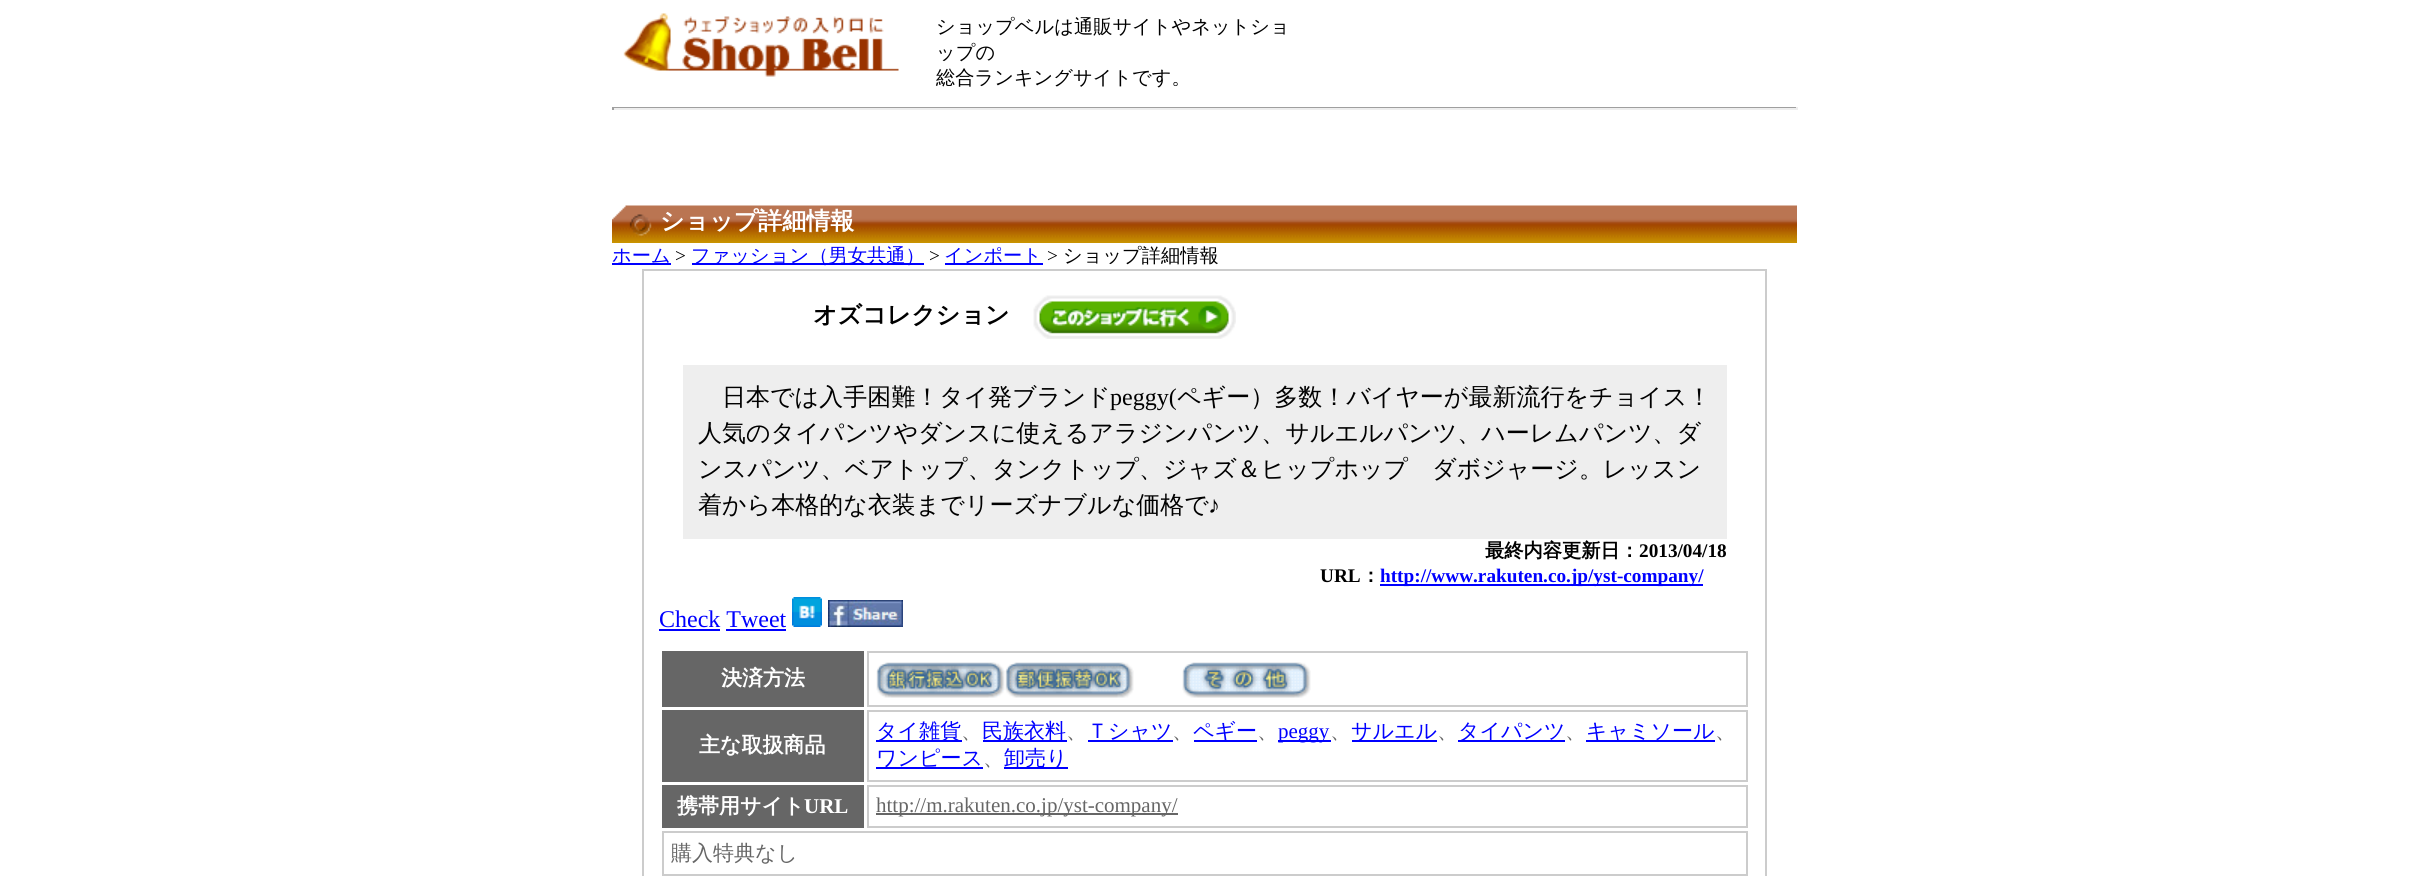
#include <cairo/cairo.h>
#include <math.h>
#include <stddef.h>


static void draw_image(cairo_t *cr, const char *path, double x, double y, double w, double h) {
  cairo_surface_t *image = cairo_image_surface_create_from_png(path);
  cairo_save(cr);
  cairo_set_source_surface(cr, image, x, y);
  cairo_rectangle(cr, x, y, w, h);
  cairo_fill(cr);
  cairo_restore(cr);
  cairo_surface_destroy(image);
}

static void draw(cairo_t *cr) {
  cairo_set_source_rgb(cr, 1, 1, 1);
  cairo_paint(cr);
  draw_image(cr, "images/1.png", 623, 13, 276, 64);
  cairo_set_source_rgb(cr, 159 / 255.0, 159 / 255.0, 159 / 255.0);
  cairo_rectangle(cr, 612, 107, 1185, 1);
  cairo_fill(cr);
  cairo_set_source_rgb(cr, 238 / 255.0, 238 / 255.0, 238 / 255.0);
  cairo_rectangle(cr, 1796, 107, 2, 3);
  cairo_fill(cr);
  cairo_rectangle(cr, 612, 108, 1185, 2);
  cairo_fill(cr);
  cairo_set_source_rgb(cr, 159 / 255.0, 159 / 255.0, 159 / 255.0);
  cairo_rectangle(cr, 612, 107, 2, 3);
  cairo_fill(cr);
  draw_image(cr, "images/2.png", 612, 205, 1185, 38);
  cairo_set_source_rgb(cr, 0, 0, 1);
  cairo_rectangle(cr, 612, 263, 59, 2);
  cairo_fill(cr);
  cairo_rectangle(cr, 692, 263, 232, 2);
  cairo_fill(cr);
  cairo_rectangle(cr, 945, 263, 98, 2);
  cairo_fill(cr);
  cairo_rectangle(cr, 643, 270, 1123, 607);
  cairo_set_source_rgb(cr, 204 / 255.0, 204 / 255.0, 204 / 255.0);
  cairo_stroke(cr);
  draw_image(cr, "images/3.png", 1033, 295, 203, 44);
  cairo_set_source_rgb(cr, 238 / 255.0, 238 / 255.0, 238 / 255.0);
  cairo_rectangle(cr, 683, 365, 1044, 174);
  cairo_fill(cr);
  cairo_set_source_rgb(cr, 0, 0, 1);
  cairo_rectangle(cr, 1380, 584, 323, 2);
  cairo_fill(cr);
  cairo_rectangle(cr, 659, 629, 61, 2);
  cairo_fill(cr);
  draw_image(cr, "images/4.png", 792, 597, 30, 30);
  draw_image(cr, "images/5.png", 828, 600, 75, 27);
  cairo_rectangle(cr, 726, 629, 60, 2);
  cairo_fill(cr);
  cairo_set_source_rgb(cr, 102 / 255.0, 102 / 255.0, 102 / 255.0);
  cairo_rectangle(cr, 662, 651, 202, 56);
  cairo_fill(cr);
  cairo_rectangle(cr, 868, 652, 879, 54);
  cairo_set_source_rgb(cr, 204 / 255.0, 204 / 255.0, 204 / 255.0);
  cairo_stroke(cr);
  draw_image(cr, "images/6.png", 876, 662, 129, 36);
  draw_image(cr, "images/7.png", 1005, 662, 129, 36);
  draw_image(cr, "images/8.png", 1182, 662, 129, 36);
  cairo_set_source_rgb(cr, 102 / 255.0, 102 / 255.0, 102 / 255.0);
  cairo_rectangle(cr, 662, 710, 202, 72);
  cairo_fill(cr);
  cairo_rectangle(cr, 868, 711, 879, 70);
  cairo_set_source_rgb(cr, 204 / 255.0, 204 / 255.0, 204 / 255.0);
  cairo_stroke(cr);
  cairo_set_source_rgb(cr, 0, 0, 1);
  cairo_rectangle(cr, 876, 740, 86, 2);
  cairo_fill(cr);
  cairo_rectangle(cr, 983, 740, 84, 2);
  cairo_fill(cr);
  cairo_rectangle(cr, 1088, 740, 85, 2);
  cairo_fill(cr);
  cairo_rectangle(cr, 1194, 740, 63, 2);
  cairo_fill(cr);
  cairo_rectangle(cr, 1278, 740, 53, 2);
  cairo_fill(cr);
  cairo_rectangle(cr, 1352, 740, 85, 2);
  cairo_fill(cr);
  cairo_rectangle(cr, 1458, 740, 107, 2);
  cairo_fill(cr);
  cairo_rectangle(cr, 1586, 740, 129, 2);
  cairo_fill(cr);
  cairo_rectangle(cr, 876, 767, 107, 2);
  cairo_fill(cr);
  cairo_rectangle(cr, 1004, 767, 64, 2);
  cairo_fill(cr);
  cairo_set_source_rgb(cr, 102 / 255.0, 102 / 255.0, 102 / 255.0);
  cairo_rectangle(cr, 662, 785, 202, 43);
  cairo_fill(cr);
  cairo_rectangle(cr, 868, 786, 879, 41);
  cairo_set_source_rgb(cr, 204 / 255.0, 204 / 255.0, 204 / 255.0);
  cairo_stroke(cr);
  cairo_set_source_rgb(cr, 102 / 255.0, 102 / 255.0, 102 / 255.0);
  cairo_rectangle(cr, 876, 813, 302, 2);
  cairo_fill(cr);
  cairo_rectangle(cr, 663, 832, 1084, 43);
  cairo_set_source_rgb(cr, 204 / 255.0, 204 / 255.0, 204 / 255.0);
  cairo_stroke(cr);
  cairo_select_font_face(cr, "WenQuanYi Zen Hei Medium", CAIRO_FONT_SLANT_NORMAL, CAIRO_FONT_WEIGHT_NORMAL);
  cairo_set_font_size(cr, 19.25);
  cairo_set_source_rgb(cr, 0, 0, 0);
  cairo_move_to(cr, 936, 33);
  cairo_show_text(cr, "ショップベルは通販サイトやネットショ");
  cairo_move_to(cr, 936, 59);
  cairo_show_text(cr, "ップの");
  cairo_move_to(cr, 936, 84);
  cairo_show_text(cr, "総合ランキングサイトです。");
  cairo_select_font_face(cr, "WenQuanYi Zen Hei", CAIRO_FONT_SLANT_NORMAL, CAIRO_FONT_WEIGHT_BOLD);
  cairo_set_font_size(cr, 24);
  cairo_set_source_rgb(cr, 1, 1, 1);
  cairo_move_to(cr, 660, 229);
  cairo_show_text(cr, "ショップ詳細情報");
  cairo_select_font_face(cr, "WenQuanYi Zen Hei Medium", CAIRO_FONT_SLANT_NORMAL, CAIRO_FONT_WEIGHT_NORMAL);
  cairo_set_font_size(cr, 19.25);
  cairo_set_source_rgb(cr, 0, 0, 1);
  cairo_move_to(cr, 612, 262);
  cairo_show_text(cr, "ホーム");
  cairo_select_font_face(cr, "Liberation Serif", CAIRO_FONT_SLANT_NORMAL, CAIRO_FONT_WEIGHT_NORMAL);
  cairo_set_source_rgb(cr, 0, 0, 0);
  cairo_move_to(cr, 675, 262);
  cairo_show_text(cr, ">");
  cairo_select_font_face(cr, "WenQuanYi Zen Hei Medium", CAIRO_FONT_SLANT_NORMAL, CAIRO_FONT_WEIGHT_NORMAL);
  cairo_set_source_rgb(cr, 0, 0, 1);
  cairo_move_to(cr, 691, 262);
  cairo_show_text(cr, "ファッション（男女共通）");
  cairo_select_font_face(cr, "Liberation Serif", CAIRO_FONT_SLANT_NORMAL, CAIRO_FONT_WEIGHT_NORMAL);
  cairo_set_source_rgb(cr, 0, 0, 0);
  cairo_move_to(cr, 929, 262);
  cairo_show_text(cr, ">");
  cairo_select_font_face(cr, "WenQuanYi Zen Hei Medium", CAIRO_FONT_SLANT_NORMAL, CAIRO_FONT_WEIGHT_NORMAL);
  cairo_set_source_rgb(cr, 0, 0, 1);
  cairo_move_to(cr, 944, 262);
  cairo_show_text(cr, "インポート");
  cairo_select_font_face(cr, "Liberation Serif", CAIRO_FONT_SLANT_NORMAL, CAIRO_FONT_WEIGHT_NORMAL);
  cairo_set_source_rgb(cr, 0, 0, 0);
  cairo_move_to(cr, 1047, 262);
  cairo_show_text(cr, ">");
  cairo_select_font_face(cr, "WenQuanYi Zen Hei Medium", CAIRO_FONT_SLANT_NORMAL, CAIRO_FONT_WEIGHT_NORMAL);
  cairo_move_to(cr, 1063, 262);
  cairo_show_text(cr, "ショップ詳細情報");
  cairo_select_font_face(cr, "WenQuanYi Zen Hei", CAIRO_FONT_SLANT_NORMAL, CAIRO_FONT_WEIGHT_BOLD);
  cairo_set_font_size(cr, 24);
  cairo_move_to(cr, 813, 323);
  cairo_show_text(cr, "オズコレクション");
  cairo_select_font_face(cr, "WenQuanYi Zen Hei Medium", CAIRO_FONT_SLANT_NORMAL, CAIRO_FONT_WEIGHT_NORMAL);
  cairo_move_to(cr, 722, 405);
  cairo_show_text(cr, "日本では入手困難！タイ発ブランド");
  cairo_select_font_face(cr, "Liberation Serif", CAIRO_FONT_SLANT_NORMAL, CAIRO_FONT_WEIGHT_NORMAL);
  cairo_move_to(cr, 1110, 405);
  cairo_show_text(cr, "peggy(");
  cairo_select_font_face(cr, "WenQuanYi Zen Hei Medium", CAIRO_FONT_SLANT_NORMAL, CAIRO_FONT_WEIGHT_NORMAL);
  cairo_move_to(cr, 1177, 405);
  cairo_show_text(cr, "ペギー）多数！バイヤーが最新流行をチョイス！");
  cairo_move_to(cr, 698, 441);
  cairo_show_text(cr, "人気のタイパンツやダンスに使えるアラジンパンツ、サルエルパンツ、ハーレムパンツ、ダ");
  cairo_move_to(cr, 698, 477);
  cairo_show_text(cr, "ンスパンツ、ベアトップ、タンクトップ、ジャズ＆ヒップホップ　ダボジャージ。レッスン");
  cairo_move_to(cr, 698, 513);
  cairo_show_text(cr, "着から本格的な衣装までリーズナブルな価格で");
  cairo_select_font_face(cr, "Liberation Serif", CAIRO_FONT_SLANT_NORMAL, CAIRO_FONT_WEIGHT_NORMAL);
  cairo_move_to(cr, 1208, 513);
  cairo_show_text(cr, "♪");
  cairo_select_font_face(cr, "WenQuanYi Zen Hei", CAIRO_FONT_SLANT_NORMAL, CAIRO_FONT_WEIGHT_BOLD);
  cairo_set_font_size(cr, 19.25);
  cairo_move_to(cr, 1485, 557);
  cairo_show_text(cr, "最終内容更新日：");
  cairo_select_font_face(cr, "Liberation Serif", CAIRO_FONT_SLANT_NORMAL, CAIRO_FONT_WEIGHT_BOLD);
  cairo_move_to(cr, 1639, 557);
  cairo_show_text(cr, "2013/04/18");
  cairo_move_to(cr, 1320, 582);
  cairo_show_text(cr, "URL");
  cairo_select_font_face(cr, "WenQuanYi Zen Hei", CAIRO_FONT_SLANT_NORMAL, CAIRO_FONT_WEIGHT_BOLD);
  cairo_move_to(cr, 1361, 582);
  cairo_show_text(cr, "：");
  cairo_select_font_face(cr, "Liberation Serif", CAIRO_FONT_SLANT_NORMAL, CAIRO_FONT_WEIGHT_BOLD);
  cairo_set_source_rgb(cr, 0, 0, 1);
  cairo_move_to(cr, 1380, 582);
  cairo_show_text(cr, "http://www.rakuten.co.jp/yst-company/");
  cairo_select_font_face(cr, "Liberation Serif", CAIRO_FONT_SLANT_NORMAL, CAIRO_FONT_WEIGHT_NORMAL);
  cairo_set_font_size(cr, 24);
  cairo_move_to(cr, 659, 627);
  cairo_show_text(cr, "Check Tweet");
  cairo_select_font_face(cr, "WenQuanYi Zen Hei", CAIRO_FONT_SLANT_NORMAL, CAIRO_FONT_WEIGHT_BOLD);
  cairo_set_font_size(cr, 21);
  cairo_set_source_rgb(cr, 1, 1, 1);
  cairo_move_to(cr, 721, 685);
  cairo_show_text(cr, "決済方法");
  cairo_move_to(cr, 699, 752);
  cairo_show_text(cr, "主な取扱商品");
  cairo_select_font_face(cr, "WenQuanYi Zen Hei Medium", CAIRO_FONT_SLANT_NORMAL, CAIRO_FONT_WEIGHT_NORMAL);
  cairo_set_source_rgb(cr, 0, 0, 1);
  cairo_move_to(cr, 876, 738);
  cairo_show_text(cr, "タイ雑貨");
  cairo_set_source_rgb(cr, 102 / 255.0, 102 / 255.0, 102 / 255.0);
  cairo_move_to(cr, 961, 738);
  cairo_show_text(cr, "、");
  cairo_set_source_rgb(cr, 0, 0, 1);
  cairo_move_to(cr, 982, 738);
  cairo_show_text(cr, "民族衣料");
  cairo_set_source_rgb(cr, 102 / 255.0, 102 / 255.0, 102 / 255.0);
  cairo_move_to(cr, 1066, 738);
  cairo_show_text(cr, "、");
  cairo_set_source_rgb(cr, 0, 0, 1);
  cairo_move_to(cr, 1087, 738);
  cairo_show_text(cr, "Ｔシャツ");
  cairo_set_source_rgb(cr, 102 / 255.0, 102 / 255.0, 102 / 255.0);
  cairo_move_to(cr, 1172, 738);
  cairo_show_text(cr, "、");
  cairo_set_source_rgb(cr, 0, 0, 1);
  cairo_move_to(cr, 1193, 738);
  cairo_show_text(cr, "ペギー");
  cairo_set_source_rgb(cr, 102 / 255.0, 102 / 255.0, 102 / 255.0);
  cairo_move_to(cr, 1257, 738);
  cairo_show_text(cr, "、");
  cairo_select_font_face(cr, "Liberation Serif", CAIRO_FONT_SLANT_NORMAL, CAIRO_FONT_WEIGHT_NORMAL);
  cairo_set_source_rgb(cr, 0, 0, 1);
  cairo_move_to(cr, 1278, 738);
  cairo_show_text(cr, "peggy");
  cairo_select_font_face(cr, "WenQuanYi Zen Hei Medium", CAIRO_FONT_SLANT_NORMAL, CAIRO_FONT_WEIGHT_NORMAL);
  cairo_set_source_rgb(cr, 102 / 255.0, 102 / 255.0, 102 / 255.0);
  cairo_move_to(cr, 1330, 738);
  cairo_show_text(cr, "、");
  cairo_set_source_rgb(cr, 0, 0, 1);
  cairo_move_to(cr, 1351, 738);
  cairo_show_text(cr, "サルエル");
  cairo_set_source_rgb(cr, 102 / 255.0, 102 / 255.0, 102 / 255.0);
  cairo_move_to(cr, 1437, 738);
  cairo_show_text(cr, "、");
  cairo_set_source_rgb(cr, 0, 0, 1);
  cairo_move_to(cr, 1458, 738);
  cairo_show_text(cr, "タイパンツ");
  cairo_set_source_rgb(cr, 102 / 255.0, 102 / 255.0, 102 / 255.0);
  cairo_move_to(cr, 1565, 738);
  cairo_show_text(cr, "、");
  cairo_set_source_rgb(cr, 0, 0, 1);
  cairo_move_to(cr, 1586, 738);
  cairo_show_text(cr, "キャミソール");
  cairo_set_source_rgb(cr, 102 / 255.0, 102 / 255.0, 102 / 255.0);
  cairo_move_to(cr, 1715, 738);
  cairo_show_text(cr, "、");
  cairo_set_source_rgb(cr, 0, 0, 1);
  cairo_move_to(cr, 876, 765);
  cairo_show_text(cr, "ワンピース");
  cairo_set_source_rgb(cr, 102 / 255.0, 102 / 255.0, 102 / 255.0);
  cairo_move_to(cr, 983, 765);
  cairo_show_text(cr, "、");
  cairo_set_source_rgb(cr, 0, 0, 1);
  cairo_move_to(cr, 1004, 765);
  cairo_show_text(cr, "卸売り");
  cairo_select_font_face(cr, "WenQuanYi Zen Hei", CAIRO_FONT_SLANT_NORMAL, CAIRO_FONT_WEIGHT_BOLD);
  cairo_set_source_rgb(cr, 1, 1, 1);
  cairo_move_to(cr, 677, 813);
  cairo_show_text(cr, "携帯用サイト");
  cairo_select_font_face(cr, "Liberation Serif", CAIRO_FONT_SLANT_NORMAL, CAIRO_FONT_WEIGHT_BOLD);
  cairo_move_to(cr, 804, 813);
  cairo_show_text(cr, "URL");
  cairo_select_font_face(cr, "Liberation Serif", CAIRO_FONT_SLANT_NORMAL, CAIRO_FONT_WEIGHT_NORMAL);
  cairo_set_source_rgb(cr, 102 / 255.0, 102 / 255.0, 102 / 255.0);
  cairo_move_to(cr, 876, 812);
  cairo_show_text(cr, "http://m.rakuten.co.jp/yst-company/");
  cairo_select_font_face(cr, "WenQuanYi Zen Hei Medium", CAIRO_FONT_SLANT_NORMAL, CAIRO_FONT_WEIGHT_NORMAL);
  cairo_move_to(cr, 671, 860);
  cairo_show_text(cr, "購入特典なし");
}

int main(void) {
  cairo_surface_t *surface = cairo_image_surface_create(CAIRO_FORMAT_RGB24, 2409, 876);
  cairo_t *cr = cairo_create(surface);
  cairo_font_options_t *options = cairo_font_options_create();
  cairo_font_options_set_hint_metrics(options, CAIRO_HINT_METRICS_OFF);
  cairo_font_options_set_hint_style(options, CAIRO_HINT_STYLE_NONE);
  cairo_set_font_options(cr, options);
  cairo_set_miter_limit(cr, 4);
  draw(cr);
  cairo_surface_write_to_png(surface, "out.png");
  cairo_font_options_destroy(options);
  cairo_destroy(cr);
  cairo_surface_destroy(surface);
  return 0;
}
